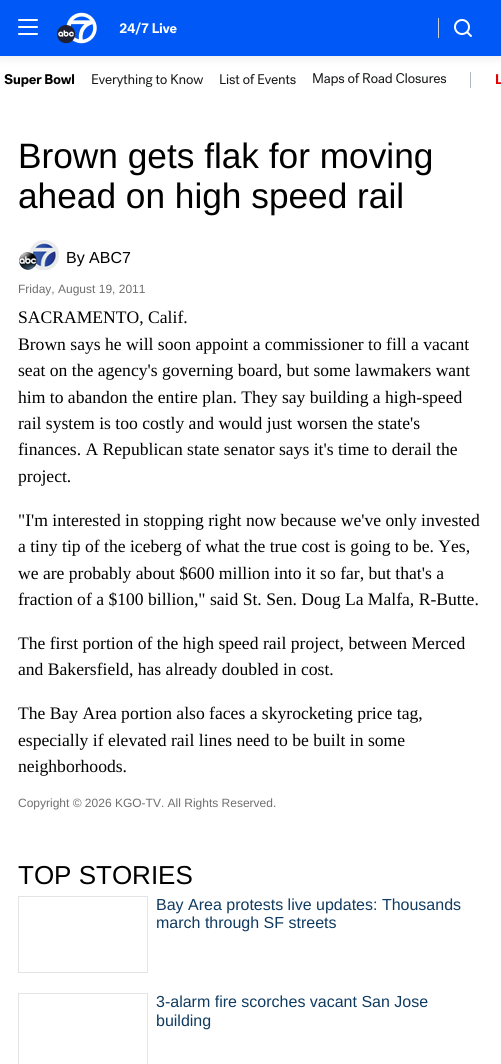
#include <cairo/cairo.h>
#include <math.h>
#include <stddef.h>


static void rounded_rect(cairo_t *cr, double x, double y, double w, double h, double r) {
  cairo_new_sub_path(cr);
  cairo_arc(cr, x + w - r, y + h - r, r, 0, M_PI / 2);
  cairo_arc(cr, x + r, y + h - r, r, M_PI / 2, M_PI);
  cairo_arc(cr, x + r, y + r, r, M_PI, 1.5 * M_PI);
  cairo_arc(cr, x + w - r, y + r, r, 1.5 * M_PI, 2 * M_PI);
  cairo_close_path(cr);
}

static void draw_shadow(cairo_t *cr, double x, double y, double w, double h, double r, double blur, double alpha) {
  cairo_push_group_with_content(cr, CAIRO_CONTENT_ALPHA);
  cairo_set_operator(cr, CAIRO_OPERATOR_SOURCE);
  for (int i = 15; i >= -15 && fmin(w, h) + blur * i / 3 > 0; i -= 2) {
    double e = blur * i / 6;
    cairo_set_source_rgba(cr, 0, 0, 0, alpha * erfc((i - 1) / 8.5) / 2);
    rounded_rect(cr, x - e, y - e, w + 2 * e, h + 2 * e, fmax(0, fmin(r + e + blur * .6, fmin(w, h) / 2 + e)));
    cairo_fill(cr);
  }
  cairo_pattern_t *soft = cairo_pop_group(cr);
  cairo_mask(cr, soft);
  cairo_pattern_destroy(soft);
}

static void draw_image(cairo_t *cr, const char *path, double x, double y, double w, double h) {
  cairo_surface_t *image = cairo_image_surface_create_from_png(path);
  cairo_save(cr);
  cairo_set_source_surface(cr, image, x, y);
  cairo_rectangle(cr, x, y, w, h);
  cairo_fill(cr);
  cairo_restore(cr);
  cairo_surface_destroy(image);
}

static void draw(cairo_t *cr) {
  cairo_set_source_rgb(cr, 1, 1, 1);
  cairo_paint(cr);
  draw_image(cr, "images/7.png", 313, 73, 134, 13);
  cairo_set_source_rgb(cr, 176 / 255.0, 181 / 255.0, 190 / 255.0);
  cairo_rectangle(cr, 470, 72, 1, 16);
  cairo_fill(cr);
  cairo_set_source_rgb(cr, 0, 0, 0);
  draw_shadow(cr, 0, 2, 501, 56, 0, 5, 0.08);
  cairo_set_source_rgb(cr, 0, 88 / 255.0, 246 / 255.0);
  cairo_rectangle(cr, 0, 0, 501, 56);
  cairo_fill(cr);
  cairo_set_source_rgb(cr, 1, 1, 1);
  rounded_rect(cr, 18, 26, 20, 2, 1);
  cairo_fill(cr);
  rounded_rect(cr, 18, 19, 20, 2, 1);
  cairo_fill(cr);
  rounded_rect(cr, 18, 33, 20, 2, 1);
  cairo_fill(cr);
  draw_image(cr, "images/1.png", 57, 12, 40, 32);
  draw_image(cr, "images/2.png", 119, 22, 58, 13);
  cairo_set_source_rgb(cr, 206 / 255.0, 207 / 255.0, 207 / 255.0);
  cairo_rectangle(cr, 438, 18, 1, 20);
  cairo_fill(cr);
  draw_image(cr, "images/3.png", 454, 19, 18, 18);
  draw_image(cr, "images/4.png", 4, 74, 71, 13);
  draw_image(cr, "images/5.png", 92, 74, 112, 13);
  draw_image(cr, "images/6.png", 220, 74, 76, 11);
  draw_image(cr, "images/8.png", 496, 74, 5, 10);
  draw_image(cr, "images/9.png", 19, 240, 40, 30);
  cairo_rectangle(cr, 18.5, 896.5, 129, 76);
  cairo_set_source_rgb(cr, 228 / 255.0, 228 / 255.0, 228 / 255.0);
  cairo_set_line_width(cr, 1);
  cairo_stroke(cr);
  cairo_rectangle(cr, 18.5, 993.5, 129, 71);
  cairo_stroke(cr);
  cairo_select_font_face(cr, "Liberation Sans", CAIRO_FONT_SLANT_NORMAL, CAIRO_FONT_WEIGHT_NORMAL);
  cairo_set_font_size(cr, 35.25);
  cairo_set_source_rgb(cr, 0, 0, 0);
  cairo_move_to(cr, 18, 168);
  cairo_show_text(cr, "Brown gets flak for moving");
  cairo_move_to(cr, 18, 208);
  cairo_show_text(cr, "ahead on high speed rail");
  cairo_set_font_size(cr, 16);
  cairo_move_to(cr, 66, 263);
  cairo_show_text(cr, "By ABC7");
  cairo_set_font_size(cr, 12);
  cairo_set_source_rgb(cr, 110 / 255.0, 110 / 255.0, 110 / 255.0);
  cairo_move_to(cr, 18, 293);
  cairo_show_text(cr, "Friday, August 19, 2011");
  cairo_select_font_face(cr, "Liberation Serif", CAIRO_FONT_SLANT_NORMAL, CAIRO_FONT_WEIGHT_NORMAL);
  cairo_set_font_size(cr, 17.6);
  cairo_set_source_rgb(cr, 0, 0, 0);
  cairo_move_to(cr, 18, 323);
  cairo_show_text(cr, "SACRAMENTO, Calif.");
  cairo_move_to(cr, 18, 350);
  cairo_show_text(cr, "Brown says he will soon appoint a commissioner to fill a vacant");
  cairo_move_to(cr, 18, 376);
  cairo_show_text(cr, "seat on the agency's governing board, but some lawmakers want");
  cairo_move_to(cr, 18, 403);
  cairo_show_text(cr, "him to abandon the entire plan. They say building a high-speed");
  cairo_move_to(cr, 18, 429);
  cairo_show_text(cr, "rail system is too costly and would just worsen the state's");
  cairo_move_to(cr, 18, 455);
  cairo_show_text(cr, "finances. A Republican state senator says it's time to derail the");
  cairo_move_to(cr, 18, 482);
  cairo_show_text(cr, "project.");
  cairo_move_to(cr, 18, 526);
  cairo_show_text(cr, "\"I'm interested in stopping right now because we've only invested");
  cairo_move_to(cr, 18, 552);
  cairo_show_text(cr, "a tiny tip of the iceberg of what the true cost is going to be. Yes,");
  cairo_move_to(cr, 18, 579);
  cairo_show_text(cr, "we are probably about $600 million into it so far, but that's a");
  cairo_move_to(cr, 18, 605);
  cairo_show_text(cr, "fraction of a $100 billion,\" said St. Sen. Doug La Malfa, R-Butte.");
  cairo_move_to(cr, 18, 649);
  cairo_show_text(cr, "The first portion of the high speed rail project, between Merced");
  cairo_move_to(cr, 18, 675);
  cairo_show_text(cr, "and Bakersfield, has already doubled in cost.");
  cairo_move_to(cr, 18, 719);
  cairo_show_text(cr, "The Bay Area portion also faces a skyrocketing price tag,");
  cairo_move_to(cr, 18, 746);
  cairo_show_text(cr, "especially if elevated rail lines need to be built in some");
  cairo_move_to(cr, 18, 772);
  cairo_show_text(cr, "neighborhoods.");
  cairo_select_font_face(cr, "Liberation Sans", CAIRO_FONT_SLANT_NORMAL, CAIRO_FONT_WEIGHT_NORMAL);
  cairo_set_font_size(cr, 12);
  cairo_set_source_rgb(cr, 110 / 255.0, 110 / 255.0, 110 / 255.0);
  cairo_move_to(cr, 18, 807);
  cairo_show_text(cr, "Copyright © 2026 KGO-TV. All Rights Reserved.");
  cairo_set_font_size(cr, 26);
  cairo_set_source_rgb(cr, 0, 0, 0);
  cairo_move_to(cr, 18, 884);
  cairo_show_text(cr, "TOP STORIES");
  cairo_set_font_size(cr, 16);
  cairo_set_source_rgb(cr, 16 / 255.0, 59 / 255.0, 97 / 255.0);
  cairo_move_to(cr, 156, 910);
  cairo_show_text(cr, "Bay Area protests live updates: Thousands");
  cairo_move_to(cr, 156, 928);
  cairo_show_text(cr, "march through SF streets");
  cairo_move_to(cr, 156, 1007);
  cairo_show_text(cr, "3-alarm fire scorches vacant San Jose");
  cairo_move_to(cr, 156, 1026);
  cairo_show_text(cr, "building");
}

int main(void) {
  cairo_surface_t *surface = cairo_image_surface_create(CAIRO_FORMAT_RGB24, 501, 1064);
  cairo_t *cr = cairo_create(surface);
  cairo_font_options_t *options = cairo_font_options_create();
  cairo_font_options_set_hint_metrics(options, CAIRO_HINT_METRICS_OFF);
  cairo_font_options_set_hint_style(options, CAIRO_HINT_STYLE_NONE);
  cairo_set_font_options(cr, options);
  cairo_set_miter_limit(cr, 4);
  draw(cr);
  cairo_surface_write_to_png(surface, "out.png");
  cairo_font_options_destroy(options);
  cairo_destroy(cr);
  cairo_surface_destroy(surface);
  return 0;
}
